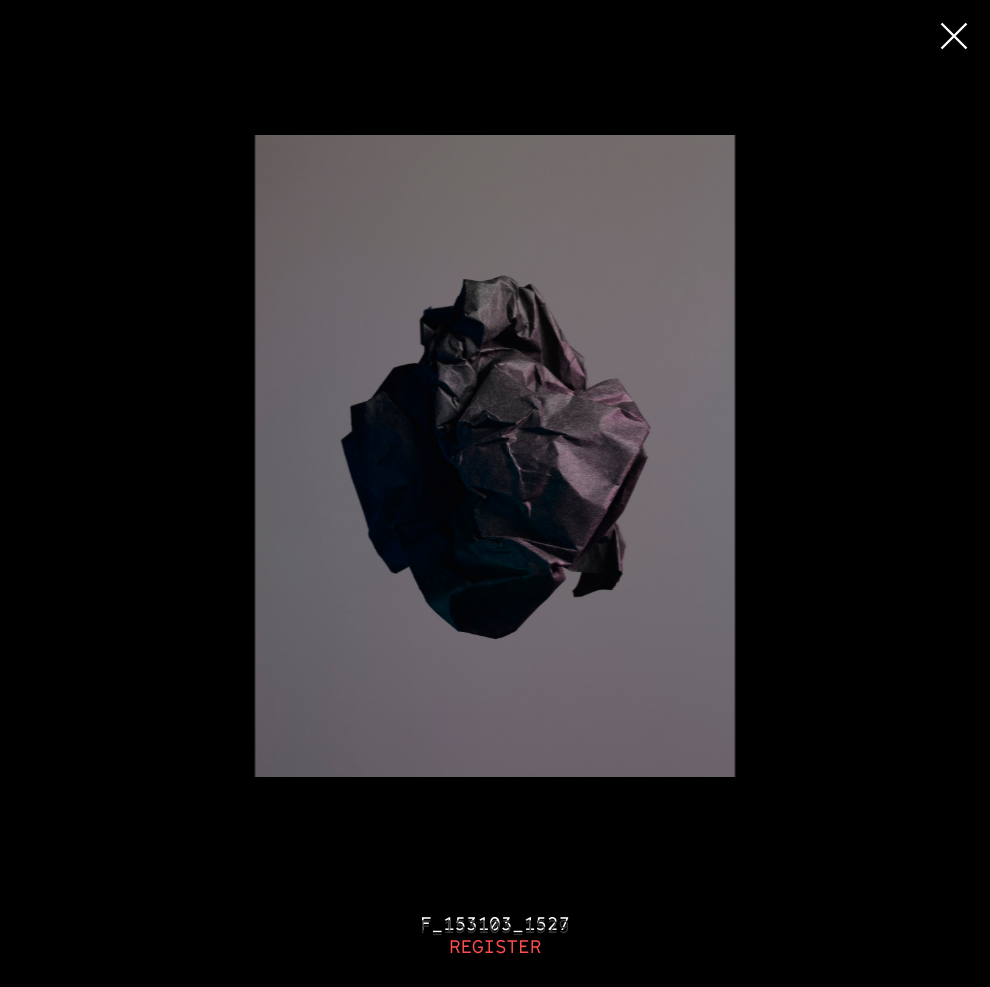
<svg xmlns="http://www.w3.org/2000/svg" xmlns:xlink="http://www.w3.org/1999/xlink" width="990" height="987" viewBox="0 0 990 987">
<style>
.cls-1{font:900 18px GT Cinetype;fill:#ffffff}
.cls-2{font:900 18px GT Cinetype;fill:#ff4c4c}
.cls-3{font:900 18px GT Cinetype;fill:#333333}
</style>
<rect width="100%" height="100%" fill="#000000"/>
<path fill="none" stroke="#ffffff" stroke-width="2.4" d="M941.5 23.5L966.5 48.5M966.5 23.5L941.5 48.5"/>
<image xlink:href="image0.png" x="254" y="135" width="482" height="642"/>
<text class="cls-1" x="420" y="930">F_153103_1527</text>
<text class="cls-2" x="449" y="953">REGISTER</text>
<text class="cls-3" x="420" y="933">F_153103_1529</text>
</svg>
